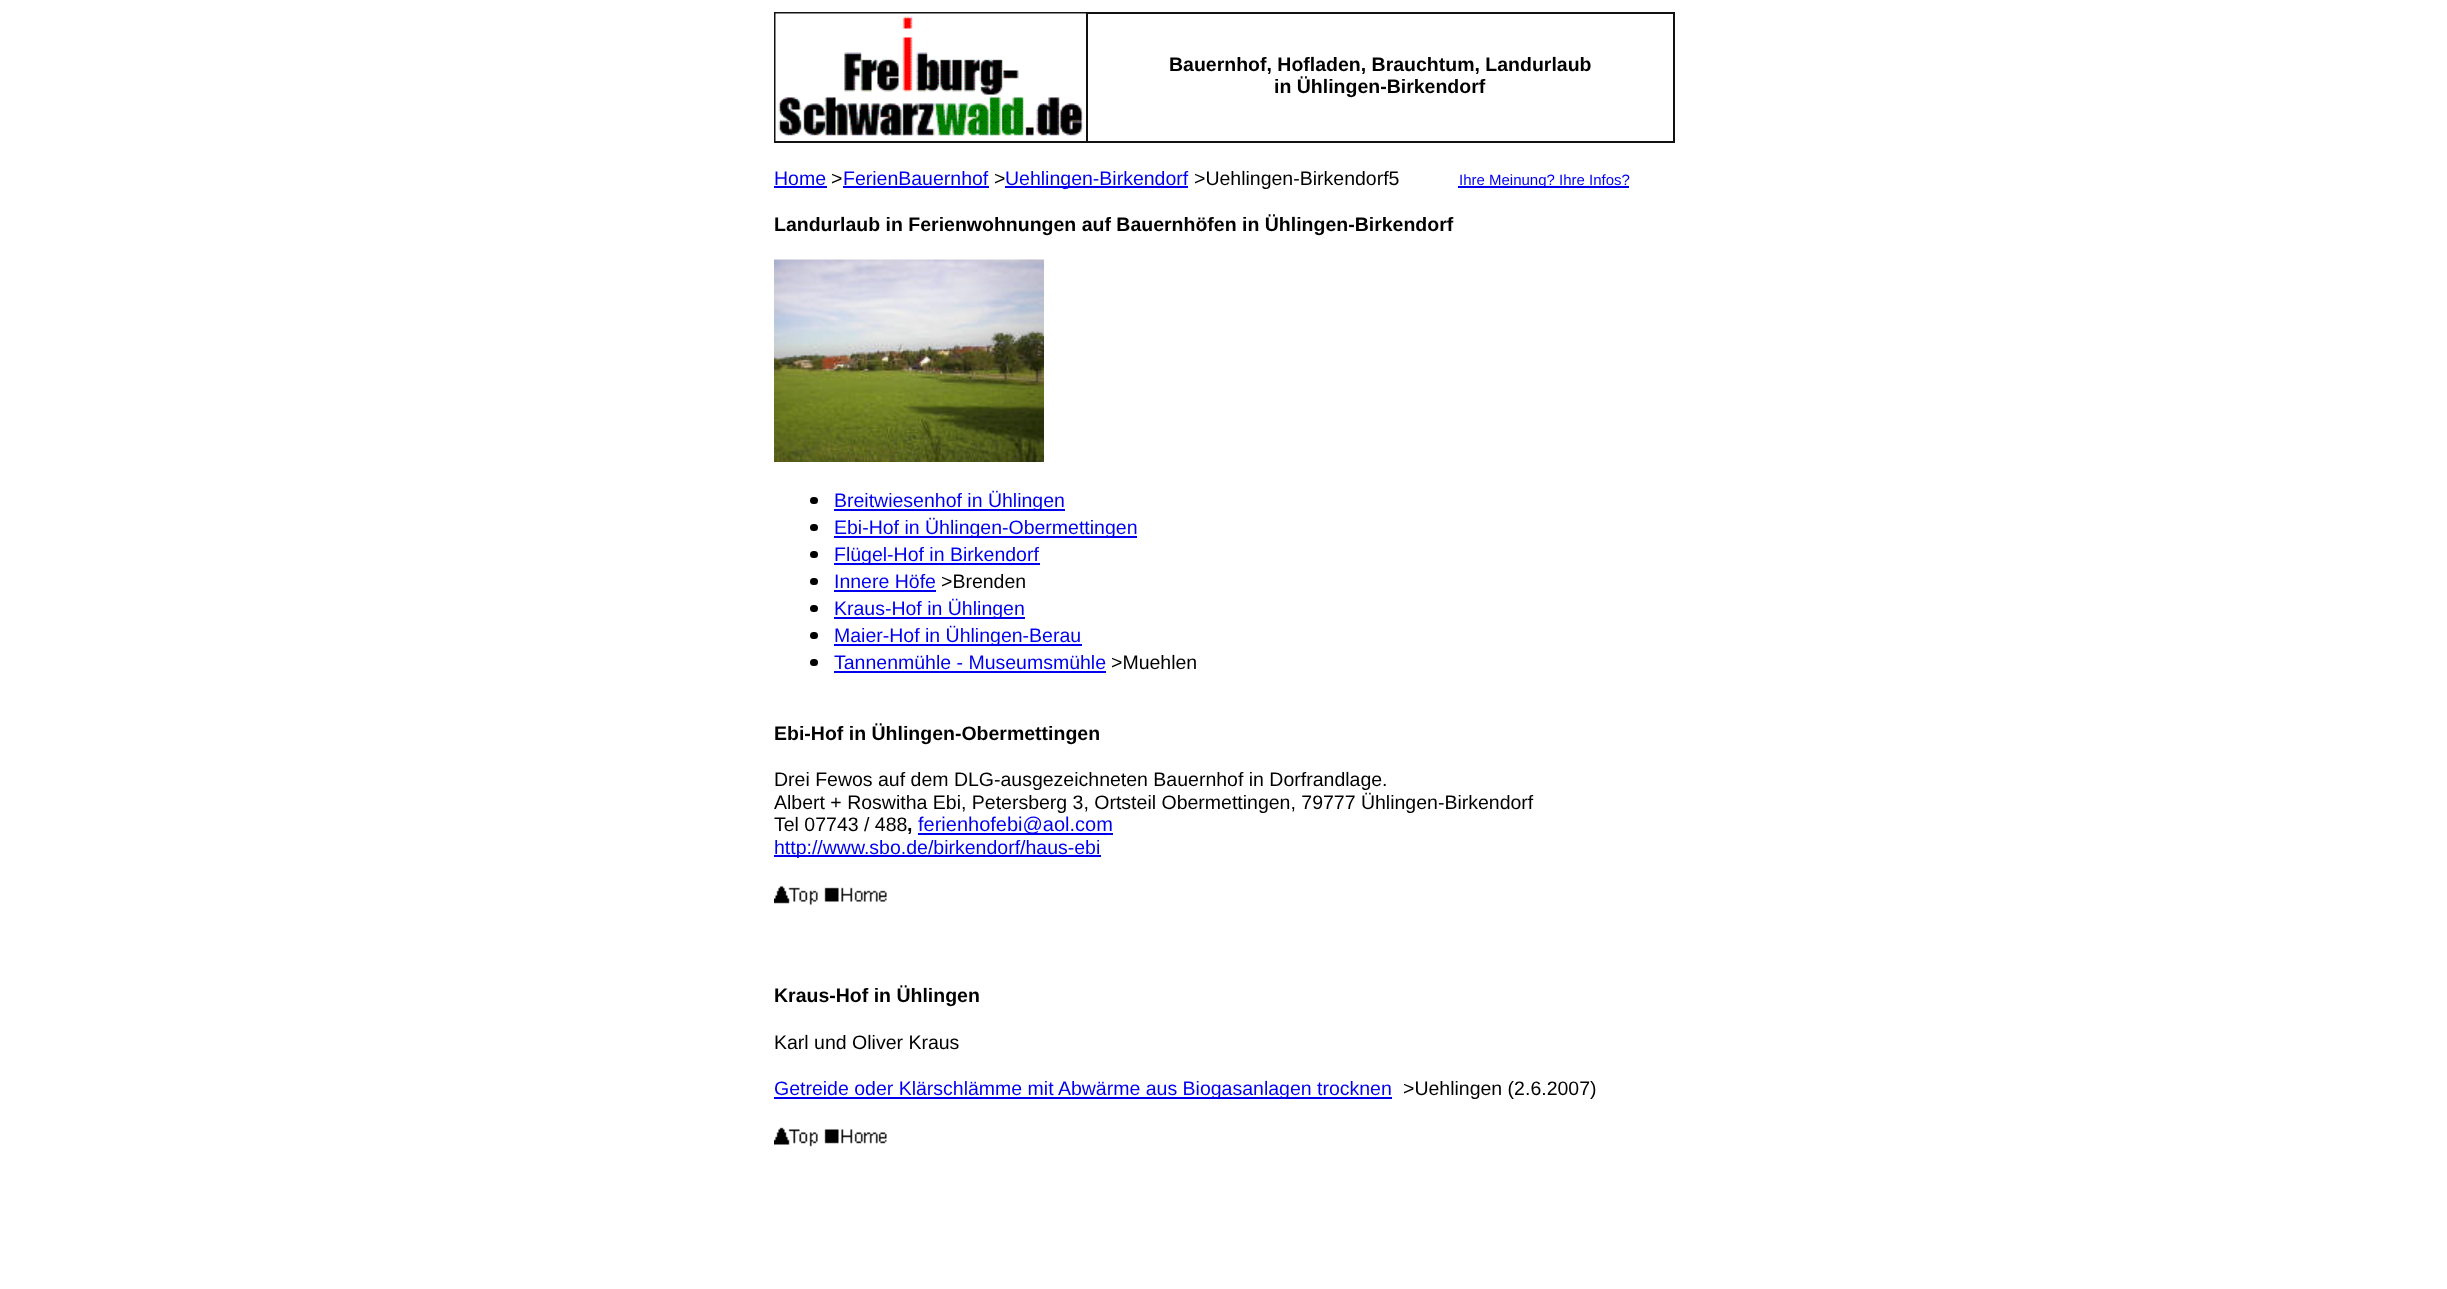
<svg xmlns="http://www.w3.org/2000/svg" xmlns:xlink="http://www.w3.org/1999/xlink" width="2447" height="1289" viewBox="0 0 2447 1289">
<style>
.cls-1{font:bold 19.5px Liberation Sans;fill:#000000}
.cls-2{font:19.5px Liberation Sans;fill:#0000ee}
.cls-3{font:19.5px Liberation Sans;fill:#000000}
.cls-4{font:15px Liberation Sans;fill:#0000ee}
.cls-5{font:20px Liberation Sans;fill:#0000ee}
</style>
<rect width="100%" height="100%" fill="#ffffff"/>
<rect fill="#111111" x="774" y="12" width="900" height="2"/>
<rect fill="#111111" x="1673" y="12" width="2" height="131"/>
<rect fill="#111111" x="774" y="141" width="900" height="2"/>
<rect fill="#111111" x="774" y="12" width="2" height="131"/>
<image xlink:href="image0.png" x="775" y="13" width="311" height="128"/>
<rect fill="#111111" x="1086" y="12" width="2" height="131"/>
<rect fill="#0000ee" x="774" y="186" width="53" height="2"/>
<rect fill="#0000ee" x="843" y="186" width="146" height="2"/>
<rect fill="#0000ee" x="1005" y="186" width="183" height="2"/>
<rect fill="#0000ee" x="1458" y="186" width="171" height="2"/>
<image xlink:href="image1.png" x="774" y="259" width="270" height="203"/>
<rect fill="#000000" x="810" y="497" width="8" height="7" rx="3.5"/>
<rect fill="#0000ee" x="834" y="509" width="231" height="2"/>
<rect fill="#000000" x="810" y="524" width="8" height="7" rx="3.5"/>
<rect fill="#0000ee" x="834" y="536" width="303" height="2"/>
<rect fill="#000000" x="810" y="551" width="8" height="7" rx="3.5"/>
<rect fill="#0000ee" x="834" y="563" width="206" height="2"/>
<rect fill="#000000" x="810" y="578" width="8" height="7" rx="3.5"/>
<rect fill="#0000ee" x="834" y="590" width="102" height="2"/>
<rect fill="#000000" x="810" y="605" width="8" height="7" rx="3.5"/>
<rect fill="#0000ee" x="834" y="617" width="191" height="2"/>
<rect fill="#000000" x="810" y="632" width="8" height="7" rx="3.5"/>
<rect fill="#0000ee" x="834" y="644" width="248" height="2"/>
<rect fill="#000000" x="810" y="659" width="8" height="7" rx="3.5"/>
<rect fill="#0000ee" x="834" y="671" width="272" height="2"/>
<rect fill="#0000ee" x="918" y="833" width="195" height="2"/>
<rect fill="#0000ee" x="774" y="855" width="327" height="2"/>
<image xlink:href="image2.png" x="774" y="886" width="44" height="19"/>
<image xlink:href="image3.png" x="824" y="887" width="63" height="15"/>
<rect fill="#0000ee" x="774" y="1097" width="618" height="2"/>
<image xlink:href="image4.png" x="774" y="1127" width="44" height="20"/>
<image xlink:href="image5.png" x="824" y="1129" width="63" height="15"/>
<text class="cls-1" x="1169" y="71">Bauernhof, Hofladen, Brauchtum, Landurlaub</text>
<text class="cls-1" x="1274" y="93">in Ühlingen-Birkendorf</text>
<text class="cls-2" x="774" y="185">Home</text>
<text class="cls-3" x="831" y="185">&gt;</text>
<text class="cls-2" x="843" y="185">FerienBauernhof</text>
<text class="cls-3" x="994" y="185">&gt;</text>
<text class="cls-2" x="1005" y="185">Uehlingen-Birkendorf</text>
<text class="cls-3" x="1194" y="185">&gt;Uehlingen-Birkendorf5</text>
<text class="cls-4" x="1459" y="185">Ihre Meinung? Ihre Infos?</text>
<text class="cls-1" x="774" y="231">Landurlaub in Ferienwohnungen auf Bauernhöfen in Ühlingen-Birkendorf</text>
<text class="cls-2"><tspan x="834" y="507">Breitwiesenhof in Ühlingen</tspan><tspan x="834" y="534">Ebi-Hof in Ühlingen-Obermettingen</tspan><tspan x="834" y="561">Flügel-Hof in Birkendorf</tspan><tspan x="834" y="588">Innere Höfe</tspan></text>
<text class="cls-3" x="941" y="588">&gt;Brenden</text>
<text class="cls-2"><tspan x="834" y="615">Kraus-Hof in Ühlingen</tspan><tspan x="834" y="642">Maier-Hof in Ühlingen-Berau</tspan><tspan x="834" y="669">Tannenmühle - Museumsmühle</tspan></text>
<text class="cls-3" x="1111" y="669">&gt;Muehlen</text>
<text class="cls-1" x="774" y="740">Ebi-Hof in Ühlingen-Obermettingen</text>
<text class="cls-3"><tspan x="774" y="786">Drei Fewos auf dem DLG-ausgezeichneten Bauernhof in Dorfrandlage.</tspan><tspan x="774" y="809">Albert + Roswitha Ebi, Petersberg 3, Ortsteil Obermettingen, 79777 Ühlingen-Birkendorf</tspan><tspan x="774" y="831">Tel 07743 / 488</tspan></text>
<text class="cls-1" x="907" y="831">,</text>
<text class="cls-5" x="918" y="831">ferienhofebi@aol.com</text>
<text class="cls-2" x="774" y="854">http://www.sbo.de/birkendorf/haus-ebi</text>
<text class="cls-1" x="774" y="1002">Kraus-Hof in Ühlingen</text>
<text class="cls-3" x="774" y="1049">Karl und Oliver Kraus</text>
<text class="cls-2" x="774" y="1095">Getreide oder Klärschlämme mit Abwärme aus Biogasanlagen trocknen</text>
<text class="cls-3" x="1403" y="1095">&gt;Uehlingen (2.6.2007)</text>
</svg>
